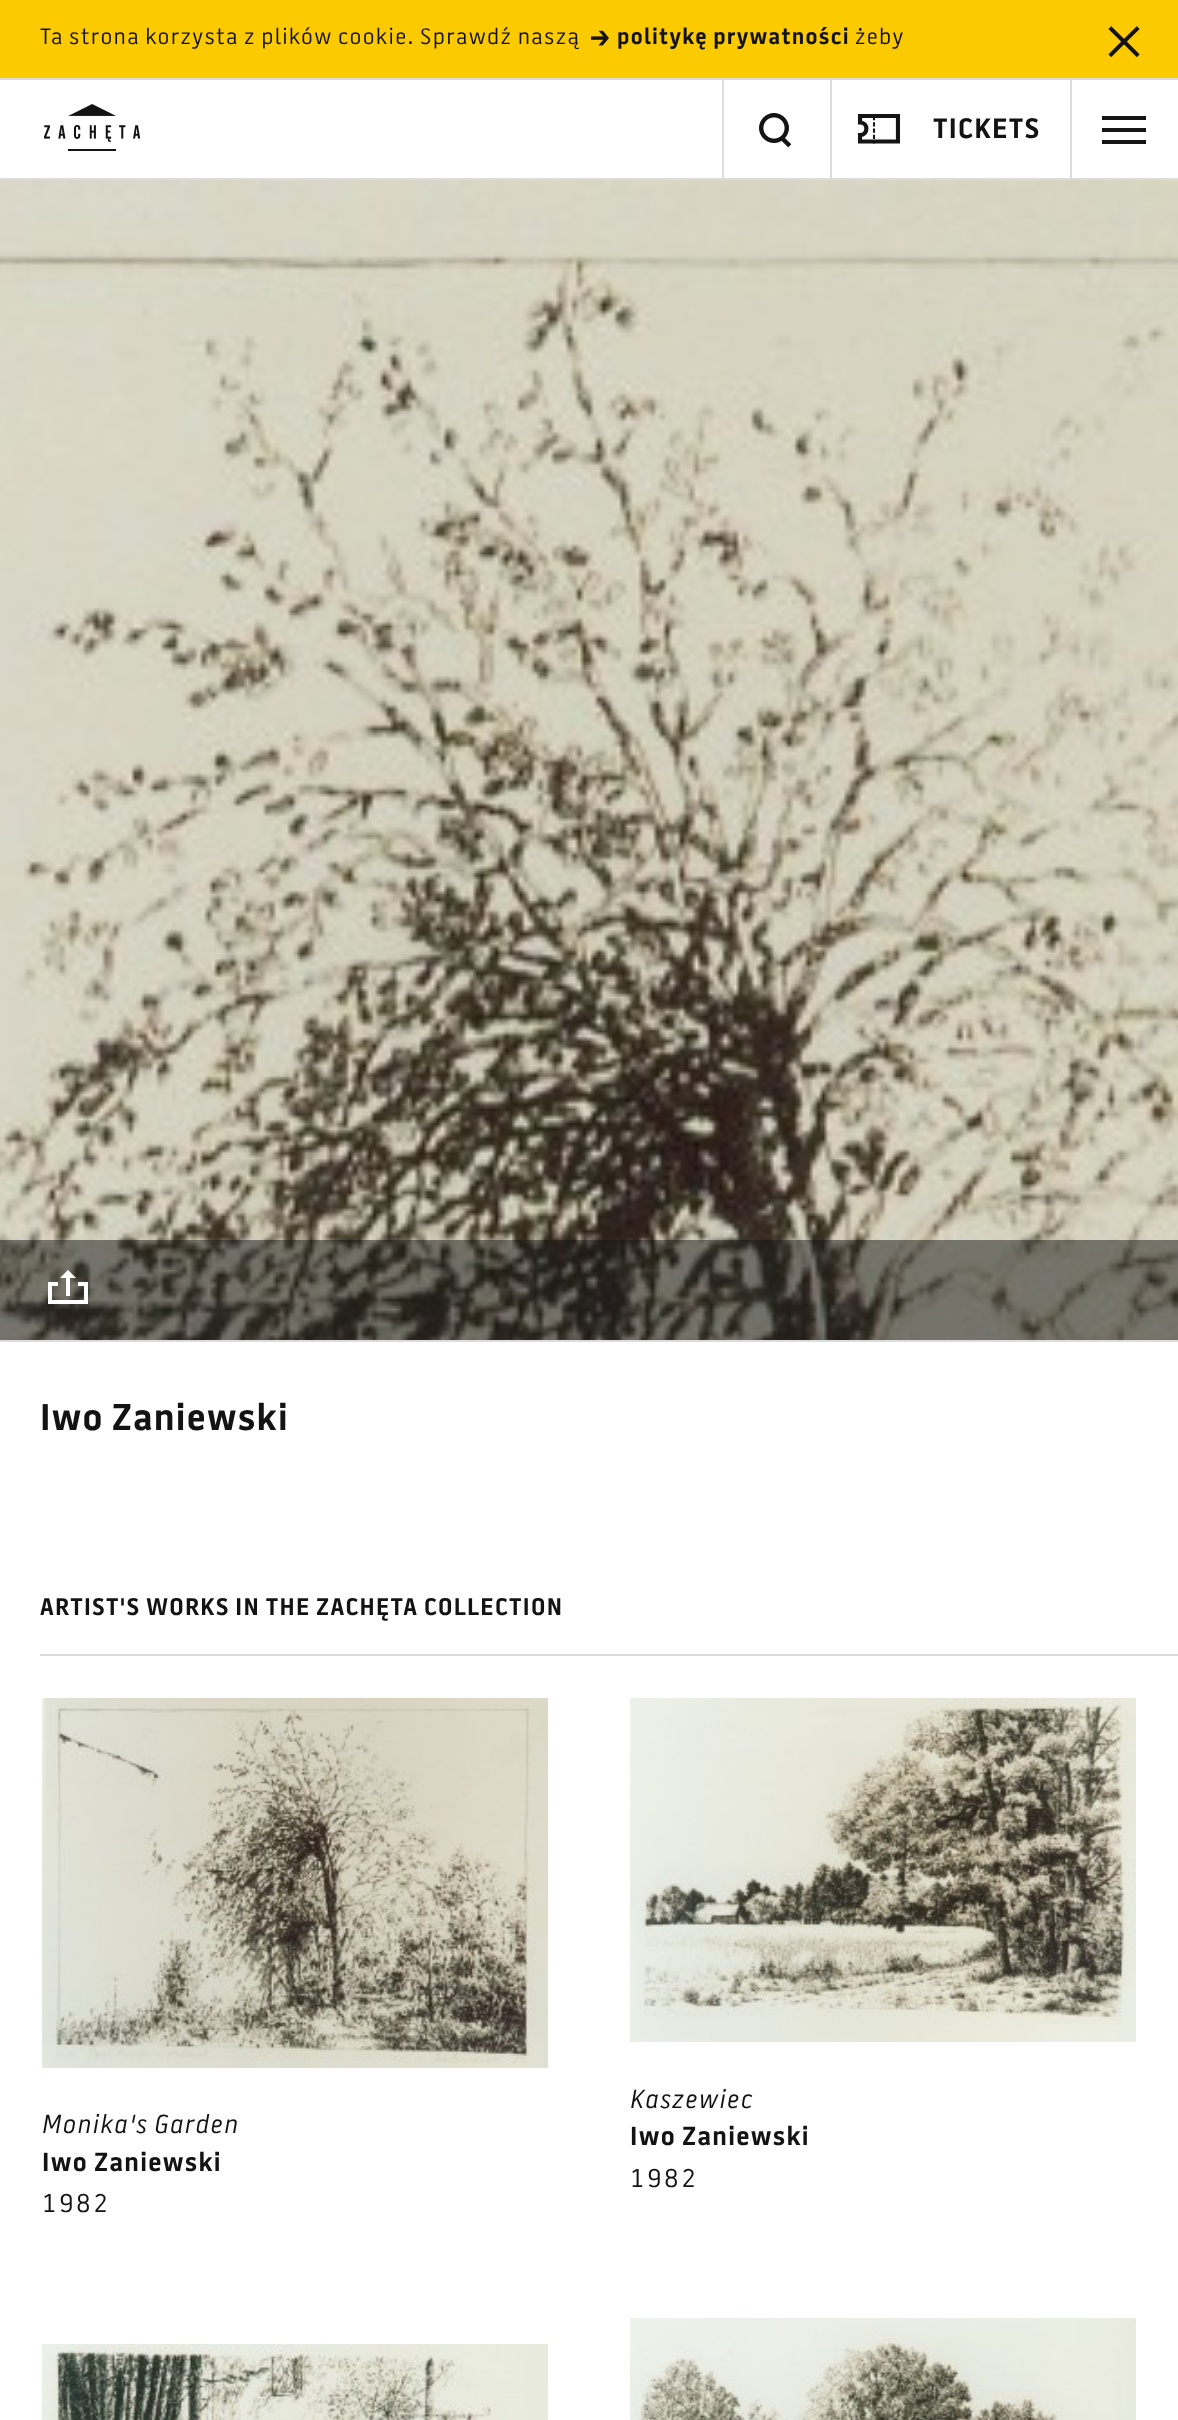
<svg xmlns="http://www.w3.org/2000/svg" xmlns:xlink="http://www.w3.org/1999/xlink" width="1178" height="2420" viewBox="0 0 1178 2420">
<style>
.cls-1{font:22.25px 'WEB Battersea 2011';letter-spacing:1.3px;fill:#131313}
.cls-2{font:bold 22.25px 'WEB Battersea 2011';letter-spacing:1.3px;fill:#131313}
.cls-3{font:bold 28px 'WEB Battersea 2011';letter-spacing:1.25px;fill:#131313}
.cls-4{font:bold 37px 'WEB Battersea 2011';letter-spacing:1.3px;fill:#131313}
.cls-5{font:bold 24px 'WEB Battersea 2011';letter-spacing:1.3px;fill:#131313}
.cls-6{font:italic 26px 'WEB Battersea 2011';letter-spacing:1.3px;fill:#131313}
.cls-7{font:bold 26px 'WEB Battersea 2011';letter-spacing:1.3px;fill:#131313}
.cls-8{font:26px 'WEB Battersea 2011';letter-spacing:2.5px;fill:#131313}
</style>
<defs>
<clipPath id="clip1"><rect x="858" y="114" width="42" height="30"/></clipPath>
</defs>
<rect width="100%" height="100%" fill="#ffffff"/>
<rect fill="#fcca00" x="0" y="0" width="1178" height="78"/>
<rect fill="#dcdcdc" x="0" y="78" width="1178" height="2"/>
<image xlink:href="image0.png" x="591" y="30" width="18" height="16"/>
<image xlink:href="image1.png" x="1108" y="26" width="32" height="32"/>
<image xlink:href="image2.png" x="44" y="104" width="97" height="47"/>
<rect fill="#dcdcdc" x="722" y="80" width="2" height="100"/>
<image xlink:href="image3.png" x="759" y="113" width="33" height="35"/>
<rect fill="#dcdcdc" x="830" y="80" width="2" height="100"/>
<g clip-path="url(#clip1)">
<path fill="none" stroke="#141414" stroke-width="4.2" d="M898 116V141.5H860V135C868.5 135 868.5 122.5 860 122.5V116Z"/>
</g>
<path fill="none" stroke="#141414" stroke-width="2.1" stroke-linecap="square" stroke-dasharray="2.1 4.2" d="M874 117V142.5"/>
<rect fill="#dcdcdc" x="1070" y="80" width="2" height="100"/>
<rect fill="#141414" x="1102" y="116" width="44" height="4"/>
<rect fill="#141414" x="1102" y="128" width="44" height="4"/>
<rect fill="#141414" x="1102" y="140" width="44" height="4"/>
<rect fill="#dcdcdc" x="0" y="178" width="1178" height="2"/>
<image xlink:href="image4.png" x="0" y="180" width="1178" height="1160"/>
<rect fill="#131313" fill-opacity="0.5" x="0" y="1240" width="1178" height="100"/>
<image xlink:href="image5.png" x="48" y="1270" width="40" height="34"/>
<rect fill="#dcdcdc" x="0" y="1340" width="1178" height="2"/>
<rect fill="#dcdcdc" x="40" y="1654" width="1138" height="2"/>
<image xlink:href="image6.png" x="42" y="1698" width="506" height="370"/>
<image xlink:href="image7.png" x="630" y="1698" width="506" height="344"/>
<image xlink:href="image8.png" x="42" y="2344" width="506" height="76"/>
<image xlink:href="image9.png" x="630" y="2318" width="506" height="102"/>
<text class="cls-1" x="40" y="44">Ta strona korzysta z plików cookie. Sprawdź naszą</text>
<text class="cls-2" x="617" y="44">politykę prywatności</text>
<text class="cls-1" x="855" y="44">żeby</text>
<text class="cls-3" x="933" y="138">TICKETS</text>
<text class="cls-4" x="40" y="1430">Iwo Zaniewski</text>
<text class="cls-5" x="40" y="1615">ARTIST'S WORKS IN THE ZACHĘTA COLLECTION</text>
<text class="cls-6" x="42" y="2133">Monika's Garden</text>
<text class="cls-7" x="42" y="2171">Iwo Zaniewski</text>
<text class="cls-8" x="42" y="2212">1982</text>
<text class="cls-6" x="630" y="2108">Kaszewiec</text>
<text class="cls-7" x="630" y="2145">Iwo Zaniewski</text>
<text class="cls-8" x="630" y="2187">1982</text>
</svg>
